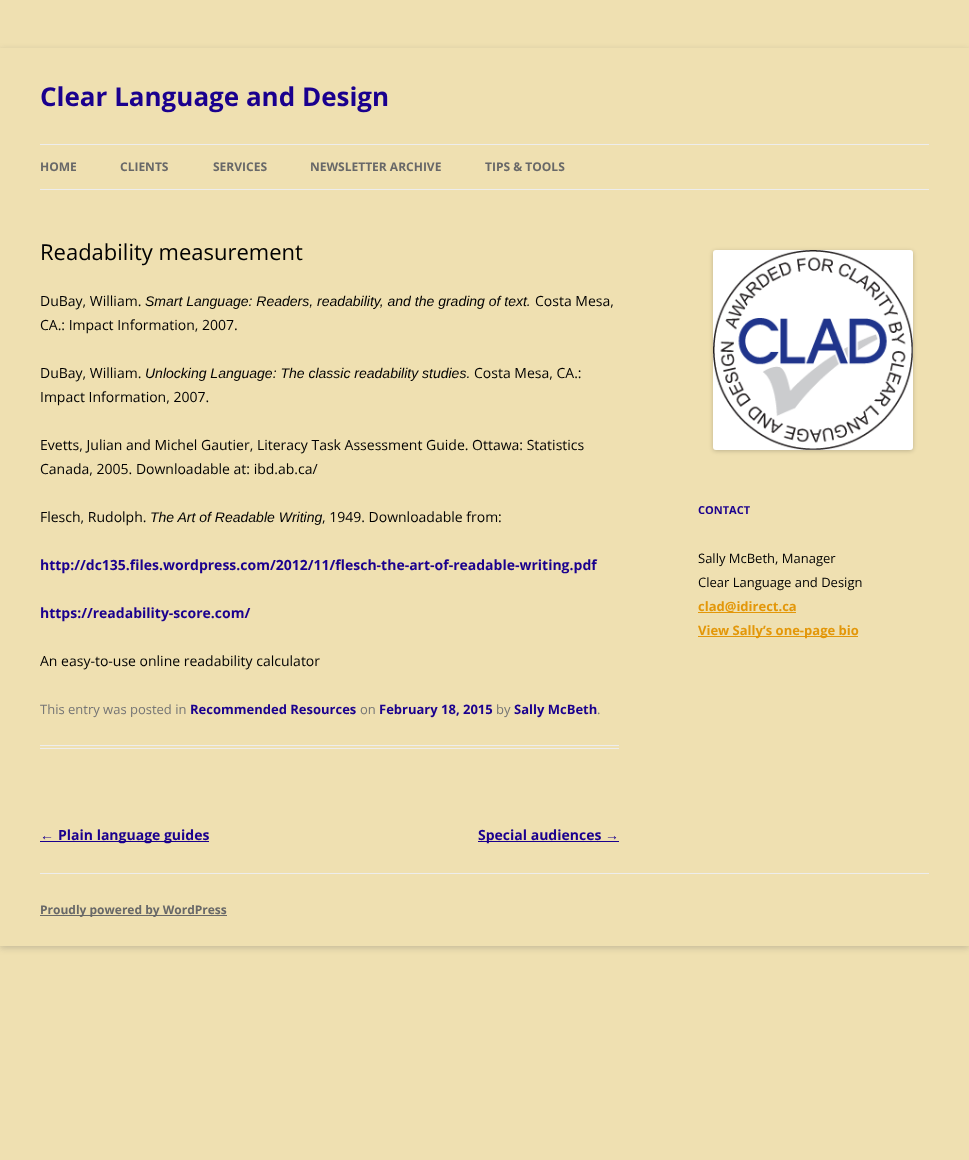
<svg xmlns="http://www.w3.org/2000/svg" xmlns:xlink="http://www.w3.org/1999/xlink" width="969" height="1160" viewBox="0 0 969 1160">
<style>
.cls-1{font:bold 26px Open Sans;fill:#1a008e}
.cls-2{font:bold 12px Open Sans;fill:#686868}
.cls-3{font:22px Open Sans;fill:#000000}
.cls-4{font:14px Open Sans;fill:#000000}
.cls-5{font:italic 14px Liberation Sans;fill:#000000}
.cls-6{font:bold 14px Open Sans;fill:#1a008e}
.cls-7{font:13px Open Sans;fill:#757575}
.cls-8{font:bold 13px Open Sans;fill:#1a008e}
.cls-9{font:bold 14px Liberation Sans;fill:#1a008e}
.cls-10{font:bold 11px Open Sans;fill:#1a008e}
.cls-11{font:13px Open Sans;fill:#000000}
.cls-12{font:bold 13px Open Sans;fill:#e39709}
</style>
<defs>
<clipPath id="clip1"><path d="M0 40H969V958H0ZM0 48H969V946H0Z" clip-rule="evenodd"/></clipPath>
</defs>
<rect width="100%" height="100%" fill="#efe0b1"/>
<g clip-path="url(#clip1)">
<rect fill="#646464" fill-opacity="0.3" filter="blur(3px)" x="0" y="50" width="969" height="898"/>
</g>
<rect fill="#ededed" x="40" y="144" width="889" height="1"/>
<rect fill="#ededed" x="40" y="189" width="889" height="1"/>
<rect fill="#ededed" x="40" y="745" width="579" height="1"/>
<rect fill="#ededed" x="40" y="748" width="579" height="1"/>
<rect fill="#1a008e" x="40" y="841" width="169" height="1"/>
<rect fill="#1a008e" x="478" y="841" width="141" height="1"/>
<rect fill="#000000" fill-opacity="0.2" filter="blur(2px)" x="713" y="251" width="200" height="200" rx="3"/>
<image xlink:href="image0.png" x="713" y="250" width="200" height="200"/>
<rect fill="#e39709" x="698" y="612" width="98" height="1"/>
<rect fill="#e39709" x="698" y="636" width="160" height="1"/>
<rect fill="#ededed" x="40" y="873" width="889" height="1"/>
<rect fill="#686868" x="40" y="915" width="187" height="1"/>
<text class="cls-1" x="40" y="106">Clear Language and Design</text>
<text class="cls-2" x="40" y="171">HOME</text>
<text class="cls-2" x="120" y="171">CLIENTS</text>
<text class="cls-2" x="213" y="171">SERVICES</text>
<text class="cls-2" x="310" y="171">NEWSLETTER ARCHIVE</text>
<text class="cls-2" x="485" y="171">TIPS &amp; TOOLS</text>
<text class="cls-3" x="40" y="260">Readability measurement</text>
<text class="cls-4" x="40" y="306">DuBay, William.</text>
<text class="cls-5" x="145" y="306">Smart Language: Readers, readability, and the grading of text.</text>
<text class="cls-4" x="535" y="306">Costa Mesa,</text>
<text class="cls-4" x="40" y="330">CA.: Impact Information, 2007.</text>
<text class="cls-4" x="40" y="378">DuBay, William.</text>
<text class="cls-5" x="145" y="378">Unlocking Language: The classic readability studies.</text>
<text class="cls-4" x="474" y="378">Costa Mesa, CA.:</text>
<text class="cls-4" x="40" y="402">Impact Information, 2007.</text>
<text class="cls-4"><tspan x="40" y="450">Evetts, Julian and Michel Gautier, Literacy Task Assessment Guide. Ottawa: Statistics</tspan><tspan x="40" y="474">Canada, 2005. Downloadable at: ibd.ab.ca/</tspan></text>
<text class="cls-4" x="40" y="522">Flesch, Rudolph.</text>
<text class="cls-5" x="150" y="522">The Art of Readable Writing</text>
<text class="cls-4" x="322" y="522">, 1949. Downloadable from:</text>
<text class="cls-6" x="40" y="570">http://dc135.files.wordpress.com/2012/11/flesch-the-art-of-readable-writing.pdf</text>
<text class="cls-6" x="40" y="618">https://readability-score.com/</text>
<text class="cls-4" x="40" y="666">An easy-to-use online readability calculator</text>
<text class="cls-7" x="40" y="714">This entry was posted in</text>
<text class="cls-8" x="190" y="714">Recommended Resources</text>
<text class="cls-7" x="360" y="714">on</text>
<text class="cls-8" x="379" y="714">February 18, 2015</text>
<text class="cls-7" x="496" y="714">by</text>
<text class="cls-8" x="514" y="714">Sally McBeth</text>
<text class="cls-7" x="597" y="714">.</text>
<text class="cls-9" x="40" y="840">←</text>
<text class="cls-6" x="58" y="840">Plain language guides</text>
<text class="cls-6" x="478" y="840">Special audiences</text>
<text class="cls-9" x="605" y="840">→</text>
<text class="cls-10" x="698" y="514">CONTACT</text>
<text class="cls-11"><tspan x="698" y="563">Sally McBeth, Manager</tspan><tspan x="698" y="587">Clear Language and Design</tspan></text>
<text class="cls-12"><tspan x="698" y="611">clad@idirect.ca</tspan><tspan x="698" y="635">View Sally’s one-page bio</tspan></text>
<text class="cls-2" x="40" y="914">Proudly powered by WordPress</text>
</svg>
